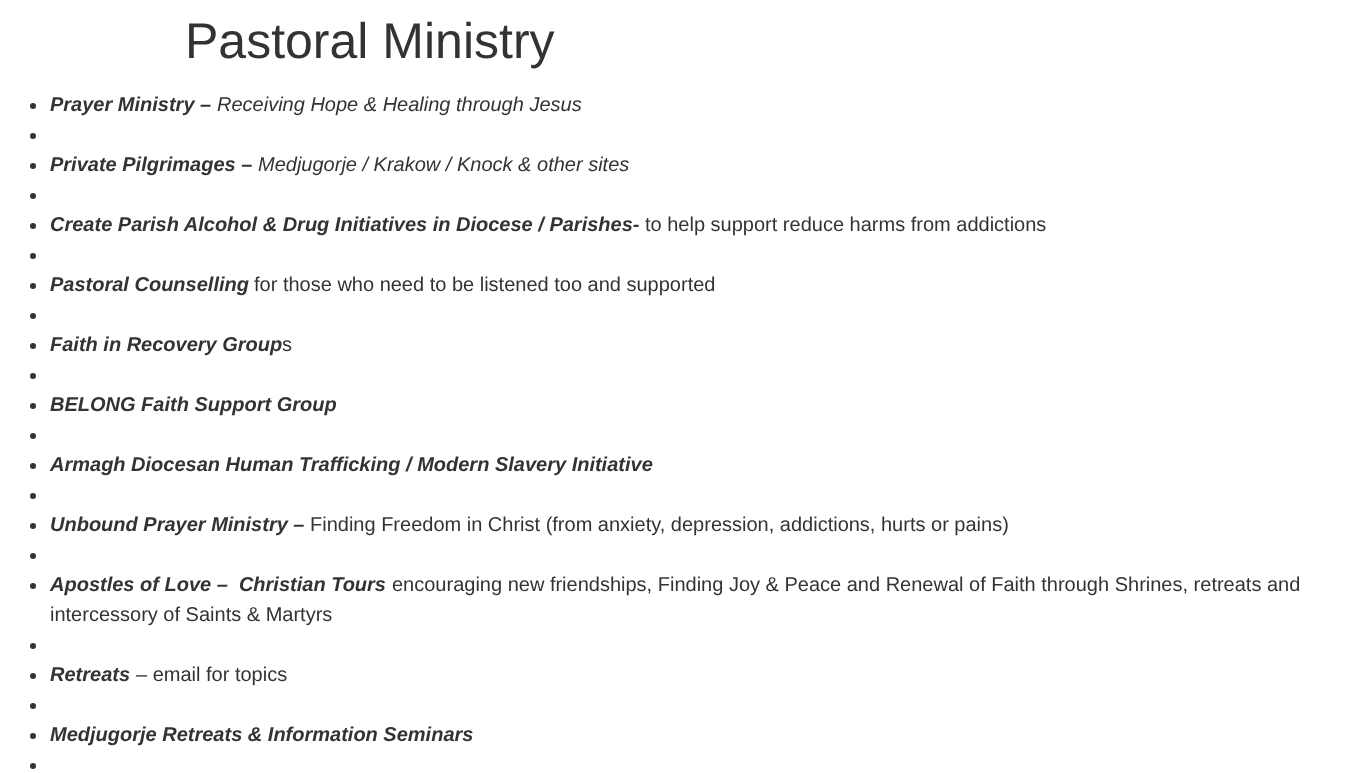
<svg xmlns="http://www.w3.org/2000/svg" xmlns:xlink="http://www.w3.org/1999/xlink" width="1369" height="773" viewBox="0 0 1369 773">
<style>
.cls-1{font:50px Liberation Sans;fill:#333333}
.cls-2{font:italic bold 20px Liberation Sans;fill:#333333}
.cls-3{font:italic 20px Liberation Sans;fill:#333333}
.cls-4{font:20px Liberation Sans;fill:#333333}
</style>
<rect width="100%" height="100%" fill="#ffffff"/>
<circle fill="#333333" cx="33" cy="106" r="3"/>
<circle fill="#333333" cx="33" cy="136" r="3"/>
<circle fill="#333333" cx="33" cy="166" r="3"/>
<circle fill="#333333" cx="33" cy="196" r="3"/>
<circle fill="#333333" cx="33" cy="226" r="3"/>
<circle fill="#333333" cx="33" cy="256" r="3"/>
<circle fill="#333333" cx="33" cy="286" r="3"/>
<circle fill="#333333" cx="33" cy="316" r="3"/>
<circle fill="#333333" cx="33" cy="346" r="3"/>
<circle fill="#333333" cx="33" cy="376" r="3"/>
<circle fill="#333333" cx="33" cy="406" r="3"/>
<circle fill="#333333" cx="33" cy="436" r="3"/>
<circle fill="#333333" cx="33" cy="466" r="3"/>
<circle fill="#333333" cx="33" cy="496" r="3"/>
<circle fill="#333333" cx="33" cy="526" r="3"/>
<circle fill="#333333" cx="33" cy="556" r="3"/>
<circle fill="#333333" cx="33" cy="586" r="3"/>
<circle fill="#333333" cx="33" cy="646" r="3"/>
<circle fill="#333333" cx="33" cy="676" r="3"/>
<circle fill="#333333" cx="33" cy="706" r="3"/>
<circle fill="#333333" cx="33" cy="736" r="3"/>
<circle fill="#333333" cx="33" cy="766" r="3"/>
<text class="cls-1" x="185" y="58">Pastoral Ministry</text>
<text class="cls-2" x="50" y="111">Prayer Ministry –</text>
<text class="cls-3" x="217" y="111">Receiving Hope &amp; Healing through Jesus</text>
<text class="cls-2" x="50" y="171">Private Pilgrimages –</text>
<text class="cls-3" x="258" y="171">Medjugorje / Krakow / Knock &amp; other sites</text>
<text class="cls-2" x="50" y="231">Create Parish Alcohol &amp; Drug Initiatives in Diocese / Parishes-</text>
<text class="cls-4" x="645" y="231">to help support reduce harms from addictions</text>
<text class="cls-2" x="50" y="291">Pastoral Counselling</text>
<text class="cls-4" x="254" y="291">for those who need to be listened too and supported</text>
<text class="cls-2" x="50" y="351">Faith in Recovery Group</text>
<text class="cls-4" x="282" y="351">s</text>
<text class="cls-2" x="50" y="411">BELONG Faith Support Group</text>
<text class="cls-2" x="50" y="471">Armagh Diocesan Human Trafficking / Modern Slavery Initiative</text>
<text class="cls-2" x="50" y="531">Unbound Prayer Ministry –</text>
<text class="cls-4" x="310" y="531">Finding Freedom in Christ (from anxiety, depression, addictions, hurts or pains)</text>
<text class="cls-2" xml:space="preserve" x="50" y="591">Apostles of Love –  Christian Tours</text>
<text class="cls-4" x="392" y="591">encouraging new friendships, Finding Joy &amp; Peace and Renewal of Faith through Shrines, retreats and</text>
<text class="cls-4" x="50" y="621">intercessory of Saints &amp; Martyrs</text>
<text class="cls-2" x="50" y="681">Retreats</text>
<text class="cls-4" x="136" y="681">– email for topics</text>
<text class="cls-2" x="50" y="741">Medjugorje Retreats &amp; Information Seminars</text>
</svg>
